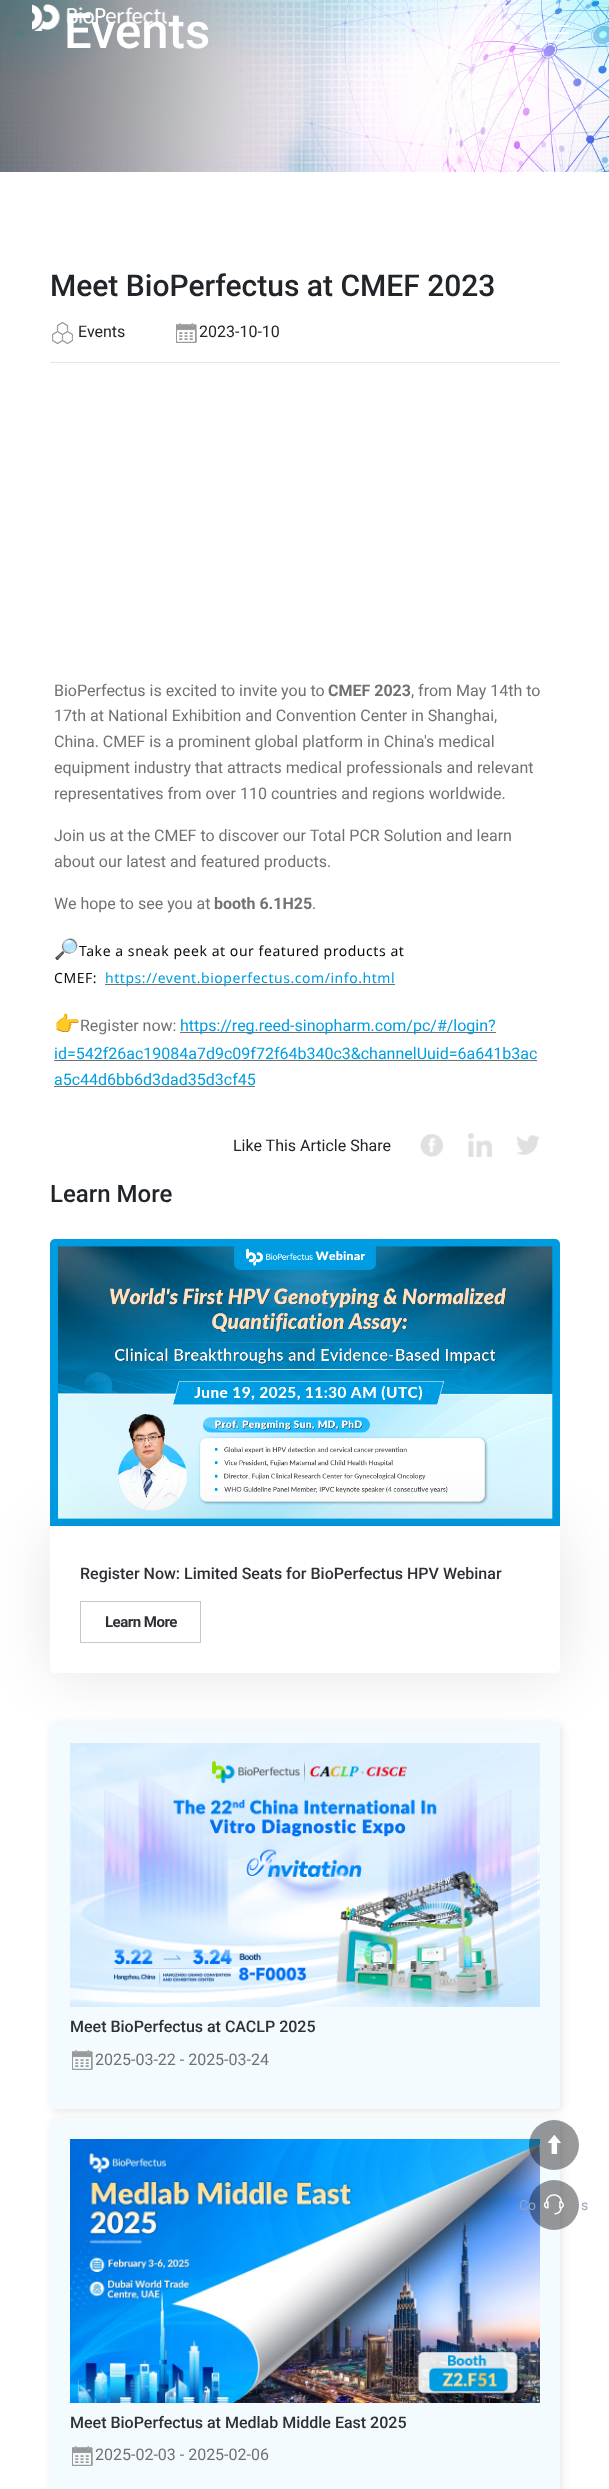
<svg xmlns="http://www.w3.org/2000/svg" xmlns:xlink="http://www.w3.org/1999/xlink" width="609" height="2489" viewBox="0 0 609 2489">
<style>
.cls-1{font:500 49px Roboto;fill:#ffffff}
.cls-2{font:500 30px Roboto;fill:#212529}
.cls-3{font:16px Roboto;fill:#212529}
.cls-4{font:16px Roboto;fill:#727171}
.cls-5{font:bold 16px Roboto;fill:#727171}
.cls-6{font:20px Noto Color Emoji;letter-spacing:0.55px;fill:#1a1a1a}
.cls-7{font:14px Noto Sans;letter-spacing:0.55px;fill:#0c0c0c}
.cls-8{font:14px Noto Sans;letter-spacing:0.55px;fill:#009de1}
.cls-9{font:21px Noto Color Emoji;fill:#374151}
.cls-10{font:16px Roboto;fill:#009de1}
.cls-11{font:500 24px Roboto;fill:#212529}
.cls-12{font:500 16px Roboto;fill:#2f3035}
.cls-13{font:bold 15px Roboto;letter-spacing:-0.5px;fill:#2f3035}
.cls-14{font:14px Roboto;fill:#95a4ba}
</style>
<rect width="100%" height="100%" fill="#ffffff"/>
<image xlink:href="image2.png" x="0" y="0" width="609" height="172"/>
<image xlink:href="image1.png" x="545" y="25" width="24" height="17"/>
<image xlink:href="image3.png" x="52" y="322" width="21" height="22"/>
<image xlink:href="image4.png" x="176" y="323" width="21" height="20"/>
<rect fill="#e6e6e6" x="50" y="362" width="510" height="1"/>
<rect fill="#727171" x="105" y="984" width="290" height="1"/>
<rect fill="#727171" x="180" y="1032" width="316" height="1"/>
<rect fill="#727171" x="54" y="1060" width="483" height="1"/>
<rect fill="#727171" x="54" y="1086" width="201" height="1"/>
<image xlink:href="image5.png" x="420" y="1134" width="23" height="23"/>
<image xlink:href="image6.png" x="468" y="1133" width="24" height="24"/>
<image xlink:href="image7.png" x="516" y="1135" width="24" height="20"/>
<image xlink:href="image8.png" x="50" y="1239" width="510" height="287"/>
<rect fill="#000000" fill-opacity="0.1" filter="blur(4px)" x="52" y="1725" width="510" height="386" rx="5"/>
<rect fill="#f3fbff" x="50" y="1723" width="510" height="386" rx="5"/>
<rect fill="#000000" fill-opacity="0.1" filter="blur(30px)" x="51" y="1528" width="510" height="147" rx="5"/>
<path fill="#ffffff" d="M50 1526H560V1668C560 1671 558 1673 555 1673H55C52 1673 50 1671 50 1668Z"/>
<rect fill="none" stroke="#c6c6c6" x="80.5" y="1601.5" width="120" height="41"/>
<image xlink:href="image9.png" x="70" y="1743" width="470" height="264"/>
<image xlink:href="image10.png" x="72" y="2050" width="21" height="20"/>
<rect fill="#000000" fill-opacity="0.1" filter="blur(4px)" x="52" y="2121" width="510" height="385" rx="5"/>
<rect fill="#f3fbff" x="50" y="2119" width="510" height="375" rx="5"/>
<image xlink:href="image11.png" x="70" y="2139" width="470" height="264"/>
<image xlink:href="image10.png" x="72" y="2446" width="21" height="20"/>
<circle fill="#000000" fill-opacity="0.4" cx="554" cy="2145" r="25"/>
<image xlink:href="image12.png" x="547" y="2135" width="14" height="19"/>
<circle fill="#000000" fill-opacity="0.4" cx="554" cy="2205" r="25"/>
<image xlink:href="image13.png" x="543" y="2194" width="21" height="21"/>
<text class="cls-1" x="64" y="48">Events</text>
<image xlink:href="image0.png" x="32" y="4" width="135" height="27"/>
<text class="cls-2" x="50" y="296">Meet BioPerfectus at CMEF 2023</text>
<text class="cls-3" x="78" y="337">Events</text>
<text class="cls-3" x="199" y="337">2023-10-10</text>
<text class="cls-4" x="54" y="696">BioPerfectus is excited to invite you to</text>
<text class="cls-5" x="328" y="696">CMEF 2023</text>
<text class="cls-4" x="411" y="696">, from May 14th to</text>
<text class="cls-4"><tspan x="54" y="721">17th at National Exhibition and Convention Center in Shanghai,</tspan><tspan x="54" y="747">China. CMEF is a prominent global platform in China's medical</tspan><tspan x="54" y="773">equipment industry that attracts medical professionals and relevant</tspan><tspan x="54" y="799">representatives from over 110 countries and regions worldwide.</tspan></text>
<text class="cls-4"><tspan x="54" y="841">Join us at the CMEF to discover our Total PCR Solution and learn</tspan><tspan x="54" y="867">about our latest and featured products.</tspan></text>
<text class="cls-4" x="54" y="909">We hope to see you at</text>
<text class="cls-5" x="214" y="909">booth 6.1H25</text>
<text class="cls-4" x="312" y="909">.</text>
<text class="cls-6" x="54" y="956">🔎</text>
<text class="cls-7" x="79" y="956">Take a sneak peek at our featured products at</text>
<text class="cls-7" x="54" y="983">CMEF:</text>
<text class="cls-8" x="105" y="983">https://event.bioperfectus.com/info.html</text>
<text class="cls-9" x="54" y="1031">👉</text>
<text class="cls-4" x="80" y="1031">Register now:</text>
<text class="cls-10" x="180" y="1031">https://reg.reed-sinopharm.com/pc/#/login?</text>
<text class="cls-10"><tspan x="54" y="1059">id=542f26ac19084a7d9c09f72f64b340c3&amp;channelUuid=6a641b3ac</tspan><tspan x="54" y="1085">a5c44d6bb6d3dad35d3cf45</tspan></text>
<text class="cls-3" x="233" y="1151">Like This Article Share</text>
<text class="cls-11" x="50" y="1202">Learn More</text>
<text class="cls-12" x="80" y="1579">Register Now: Limited Seats for BioPerfectus HPV Webinar</text>
<text class="cls-13" x="105" y="1627">Learn More</text>
<text class="cls-12" x="70" y="2032">Meet BioPerfectus at CACLP 2025</text>
<text class="cls-4" x="95" y="2065">2025-03-22 - 2025-03-24</text>
<text class="cls-12" x="70" y="2428">Meet BioPerfectus at Medlab Middle East 2025</text>
<text class="cls-4" x="95" y="2460">2025-02-03 - 2025-02-06</text>
<text class="cls-14" x="519" y="2210">Co</text>
<text class="cls-14" x="581" y="2210">s</text>
</svg>
